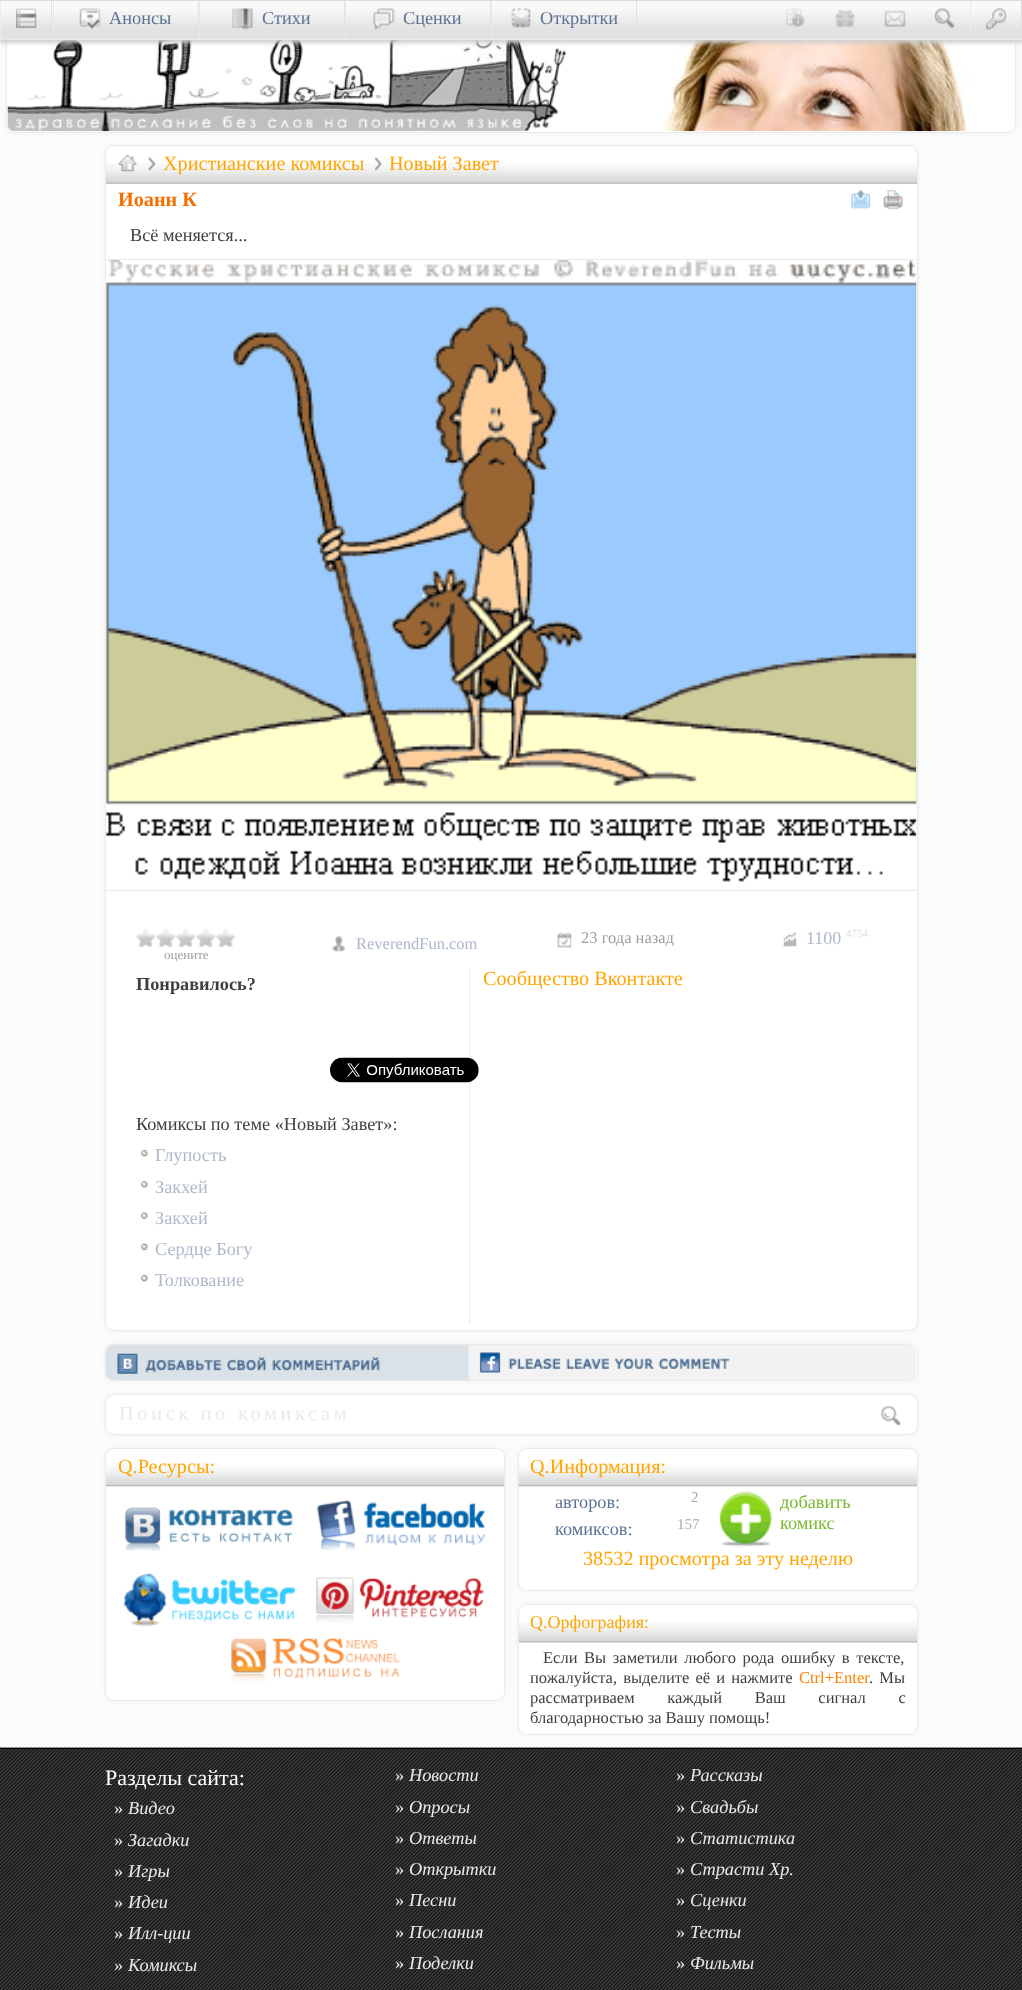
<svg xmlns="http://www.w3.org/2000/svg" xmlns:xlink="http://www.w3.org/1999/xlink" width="1022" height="1990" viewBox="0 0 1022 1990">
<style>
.cls-1{font:18.3px Liberation Serif;fill:#5d7195}
.cls-2{font:20.2px Liberation Serif;fill:#ffa500}
.cls-3{font:bold 20.2px Liberation Serif;fill:#f36f01}
.cls-4{font:18.3px Liberation Serif;fill:#3f3f3f}
.cls-5{font:16.5px Liberation Serif;fill:#aeb8ca}
.cls-6{font:16.5px Liberation Serif;fill:#9f9f9f}
.cls-7{font:18px Liberation Serif;fill:#aeb8ca}
.cls-8{font:11px Liberation Serif;fill:#dfdfdf}
.cls-9{font:13px Liberation Serif;fill:#9f9f9f}
.cls-10{font:bold 18.3px Liberation Serif;fill:#3f3f3f}
.cls-11{font:18.3px Liberation Serif;fill:#aeb8ca}
.cls-12{font:20.2px Liberation Serif;letter-spacing:3.75px;fill:#eaeaea}
.cls-13{font:15px Liberation Serif;fill:#aaaaaa}
.cls-14{font:18.3px Liberation Serif;fill:#77b830}
.cls-15{font:18px Liberation Serif;fill:#ffa500}
.cls-16{font:16.5px Liberation Serif;fill:#3f3f3f}
.cls-17{font:16.5px Liberation Serif;fill:#ff8000}
.cls-18{font:22px Liberation Serif;fill:#ffffff}
.cls-19{font:18.3px Liberation Serif;fill:#eaeaea}
.cls-20{font:italic 18.3px Liberation Serif;fill:#eaeaea}
</style>
<defs>
<linearGradient id="g1" gradientUnits="userSpaceOnUse" x1="511" y1="1.2" x2="511" y2="39"><stop offset="0.19" stop-color="#f9f9f9"/><stop offset="0.75" stop-color="#e2e2e2"/></linearGradient>
<clipPath id="clip1"><path d="M-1 0H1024V36C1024 38 1022 40 1020 40H3C1 40-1 38-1 36Z"/></clipPath>
<linearGradient id="g2" gradientUnits="userSpaceOnUse" x1="511" y1="39" x2="511" y2="76"><stop offset="0.19" stop-color="#f9f9f9"/><stop offset="0.75" stop-color="#e2e2e2"/></linearGradient>
</defs>
<rect width="100%" height="100%" fill="#fbfbfb"/>
<rect fill="#e5e5e5" fill-opacity="0.5" filter="blur(2px)" x="6" y="-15" width="1010" height="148" rx="9"/>
<rect fill="#ffffff" stroke="#eaeaea" x="6.5" y="-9.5" width="1009" height="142" rx="8.5"/>
<image xlink:href="image10.png" x="7" y="40" width="560" height="92"/>
<image xlink:href="image11.png" x="663" y="40" width="346" height="92"/>
<rect fill="#cecece" filter="blur(2px)" x="-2" y="0" width="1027" height="43" rx="5"/>
<rect fill="url(#g1)" x="0" y="1" width="1022" height="38"/>
<g clip-path="url(#clip1)">
<rect fill="url(#g2)" x="0" y="39" width="1022" height="1"/>
</g>
<path fill="#dbdbdb" d="M-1 0L0 1H1022V2L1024 0Z"/>
<path fill="#ebebeb" d="M2 40H1020L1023 39L1022 38L1021 39H2L1 38L0 39Z"/>
<path fill="#dbdbdb" d="M-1 0V36C-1 37-.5 38 0 39L.5 38C0 37.5 0 37 0 36V1Z"/>
<rect fill="#e0e0e0" x="51" y="1" width="1" height="28"/>
<rect fill="#ebebeb" x="0" y="1" width="1" height="37"/>
<image xlink:href="image0.png" x="16" y="8" width="21" height="21"/>
<rect fill="#e0e0e0" x="198" y="1" width="1" height="28"/>
<rect fill="#ebebeb" x="53" y="1" width="1" height="37"/>
<image xlink:href="image1.png" x="79" y="8" width="22" height="22"/>
<rect fill="#e0e0e0" x="344" y="1" width="1" height="28"/>
<rect fill="#ebebeb" x="199" y="1" width="1" height="37"/>
<image xlink:href="image2.png" x="232" y="8" width="22" height="22"/>
<rect fill="#e0e0e0" x="490" y="1" width="1" height="28"/>
<rect fill="#ebebeb" x="345" y="1" width="1" height="37"/>
<image xlink:href="image3.png" x="373" y="8" width="22" height="22"/>
<rect fill="#e0e0e0" x="636" y="1" width="1" height="28"/>
<rect fill="#ebebeb" x="491" y="1" width="1" height="37"/>
<image xlink:href="image4.png" x="511" y="8" width="20" height="20"/>
<image xlink:href="image5.png" x="786" y="8" width="19" height="19"/>
<image xlink:href="image6.png" x="835" y="9" width="20" height="19"/>
<image xlink:href="image7.png" x="884" y="10" width="22" height="17"/>
<image xlink:href="image8.png" x="934" y="8" width="21" height="21"/>
<rect fill="#e0e0e0" x="1021" y="1" width="1" height="28"/>
<rect fill="#ebebeb" x="970" y="1" width="1" height="37"/>
<image xlink:href="image9.png" x="986" y="8" width="20" height="22"/>
<rect fill="#e5e5e5" fill-opacity="0.5" filter="blur(2px)" x="105" y="145" width="813" height="1186" rx="9"/>
<rect fill="#ffffff" x="105" y="145" width="813" height="1186" rx="9"/>
<image xlink:href="image12.png" x="106" y="163" width="811" height="21"/>
<rect fill="none" stroke="#eaeaea" x="105.5" y="145.5" width="812" height="1185" rx="8.5"/>
<image xlink:href="image13.png" x="118" y="155" width="19" height="17"/>
<image xlink:href="image14.png" x="148" y="157" width="8" height="14"/>
<image xlink:href="image15.png" x="374" y="157" width="8" height="14"/>
<image xlink:href="image16.png" x="851" y="189" width="20" height="20"/>
<image xlink:href="image17.png" x="883" y="190" width="20" height="19"/>
<path fill="#eaeaea" fill-rule="evenodd" d="M916 891H106V890H916ZM106 260H916V259H106Z"/>
<image xlink:href="image18.png" x="106" y="260" width="811" height="622"/>
<image xlink:href="image19.png" x="332" y="936" width="14" height="16"/>
<image xlink:href="image20.png" x="557" y="932" width="15" height="16"/>
<image xlink:href="image21.png" x="783" y="932" width="14" height="15"/>
<image xlink:href="image22.png" x="136" y="929" width="100" height="19"/>
<rect fill="#eaebeb" x="469" y="968" width="1" height="356"/>
<image xlink:href="image23.png" x="330" y="1057" width="149" height="26"/>
<image xlink:href="image24.png" x="141" y="1149" width="7" height="8"/>
<image xlink:href="image25.png" x="141" y="1181" width="7" height="7"/>
<image xlink:href="image26.png" x="141" y="1212" width="7" height="7"/>
<image xlink:href="image27.png" x="141" y="1243" width="7" height="8"/>
<image xlink:href="image24.png" x="141" y="1274" width="7" height="8"/>
<rect fill="#e5e5e5" fill-opacity="0.5" filter="blur(2px)" x="105" y="1344" width="813" height="37" rx="9"/>
<rect fill="#ffffff" stroke="#eaeaea" x="105.5" y="1344.5" width="812" height="36" rx="8.5"/>
<path fill="#dae2e8" d="M114 1345H469V1380H114C109.5 1380 106 1376.5 106 1372V1353C106 1348.5 109.5 1345 114 1345Z"/>
<image xlink:href="image28.png" x="106" y="1345" width="275" height="35"/>
<path fill="#f2f2f2" d="M469 1345H908C912.5 1345 916 1348.5 916 1353V1372C916 1376.5 912.5 1380 908 1380H469Z"/>
<image xlink:href="image29.png" x="468" y="1345" width="263" height="35"/>
<rect fill="#e5e5e5" fill-opacity="0.5" filter="blur(2px)" x="105" y="1394" width="813" height="41" rx="9"/>
<rect fill="#ffffff" stroke="#eaeaea" x="105.5" y="1394.5" width="812" height="40" rx="8.5"/>
<image xlink:href="image30.png" x="881" y="1406" width="20" height="20"/>
<rect fill="#e5e5e5" fill-opacity="0.5" filter="blur(2px)" x="105" y="1448" width="400" height="253" rx="9"/>
<rect fill="#ffffff" x="105" y="1448" width="400" height="253" rx="9"/>
<image xlink:href="image31.png" x="106" y="1465" width="398" height="22"/>
<rect fill="none" stroke="#eaeaea" x="105.5" y="1448.5" width="399" height="252" rx="8.5"/>
<image xlink:href="image32.png" x="124" y="1507" width="169" height="44"/>
<image xlink:href="image33.png" x="317" y="1500" width="169" height="50"/>
<image xlink:href="image34.png" x="123" y="1573" width="173" height="54"/>
<image xlink:href="image35.png" x="316" y="1577" width="168" height="46"/>
<image xlink:href="image36.png" x="231" y="1637" width="169" height="46"/>
<rect fill="#e5e5e5" fill-opacity="0.5" filter="blur(2px)" x="518" y="1448" width="400" height="143" rx="9"/>
<rect fill="#ffffff" x="518" y="1448" width="400" height="143" rx="9"/>
<image xlink:href="image37.png" x="517" y="1465" width="400" height="22"/>
<rect fill="none" stroke="#eaeaea" x="518.5" y="1448.5" width="399" height="142" rx="8.5"/>
<image xlink:href="image38.png" x="719" y="1491" width="53" height="56"/>
<rect fill="#e5e5e5" fill-opacity="0.5" filter="blur(2px)" x="518" y="1604" width="400" height="131" rx="9"/>
<rect fill="#ffffff" x="518" y="1604" width="400" height="131" rx="9"/>
<image xlink:href="image39.png" x="517" y="1621" width="400" height="22"/>
<rect fill="none" stroke="#eaeaea" x="518.5" y="1604.5" width="399" height="130" rx="8.5"/>
<image xlink:href="image40.png" x="0" y="1747" width="1022" height="243"/>
<rect fill="#000000" x="0" y="1748" width="1022" height="1"/>
<text class="cls-1" x="109" y="24">Анонсы</text>
<text class="cls-1" x="262" y="24">Стихи</text>
<text class="cls-1" x="403" y="24">Сценки</text>
<text class="cls-1" x="540" y="24">Открытки</text>
<text class="cls-2" x="163" y="170">Христианские комиксы</text>
<text class="cls-2" x="389" y="170">Новый Завет</text>
<text class="cls-3" x="118" y="206">Иоанн К</text>
<text class="cls-4" x="130" y="241">Всё меняется...</text>
<text class="cls-5" x="356" y="949">ReverendFun.com</text>
<text class="cls-6" x="581" y="943">23 года назад</text>
<text class="cls-7" x="806" y="944">1100</text>
<text class="cls-8" x="846" y="937">4754</text>
<text class="cls-9" x="164" y="959">оцените</text>
<text class="cls-10" x="136" y="990">Понравилось?</text>
<text class="cls-4" x="136" y="1130">Комиксы по теме «Новый Завет»:</text>
<text class="cls-11"><tspan x="155" y="1161">Глупость</tspan><tspan x="155" y="1193">Закхей</tspan><tspan x="155" y="1224">Закхей</tspan><tspan x="155" y="1255">Сердце Богу</tspan><tspan x="155" y="1286">Толкование</tspan></text>
<text class="cls-2" x="483" y="985">Сообщество Вконтакте</text>
<text class="cls-12" x="119" y="1420">Поиск по комиксам</text>
<text class="cls-2" x="118" y="1473">Q.Ресурсы:</text>
<text class="cls-2" x="530" y="1473">Q.Информация:</text>
<text class="cls-13" x="691" y="1502">2</text>
<text class="cls-1" x="555" y="1508">авторов:</text>
<text class="cls-13" x="677" y="1529">157</text>
<text class="cls-1" x="555" y="1535">комиксов:</text>
<text class="cls-14"><tspan x="780" y="1508">добавить</tspan><tspan x="780" y="1529">комикс</tspan></text>
<text class="cls-2" x="583" y="1565">38532 просмотра за эту неделю</text>
<text class="cls-15" x="530" y="1628">Q.Орфография:</text>
<text class="cls-16" x="543" y="1663" word-spacing="2.5">Если Вы заметили любого рода ошибку в тексте,</text>
<text class="cls-16" x="530" y="1683" word-spacing="2">пожалуйста, выделите её и нажмите</text>
<text class="cls-17" x="799" y="1683">Ctrl+Enter</text>
<text class="cls-16" x="869" y="1683" word-spacing="2">. Мы</text>
<text class="cls-16"><tspan x="530" y="1703" word-spacing="28.5">рассматриваем каждый Ваш сигнал с</tspan><tspan x="530" y="1723">благодарностью за Вашу помощь!</tspan></text>
<text class="cls-18" x="105" y="1785">Разделы сайта:</text>
<text class="cls-19" x="395" y="1781">»</text>
<text class="cls-20" x="409" y="1781">Новости</text>
<text class="cls-19" x="676" y="1781">»</text>
<text class="cls-20" x="690" y="1781">Рассказы</text>
<text class="cls-19" x="114" y="1814">»</text>
<text class="cls-20" x="128" y="1814">Видео</text>
<text class="cls-19" x="395" y="1813">»</text>
<text class="cls-20" x="409" y="1813">Опросы</text>
<text class="cls-19" x="676" y="1813">»</text>
<text class="cls-20" x="690" y="1813">Свадьбы</text>
<text class="cls-19" x="114" y="1846">»</text>
<text class="cls-20" x="128" y="1846">Загадки</text>
<text class="cls-19" x="395" y="1844">»</text>
<text class="cls-20" x="409" y="1844">Ответы</text>
<text class="cls-19" x="676" y="1844">»</text>
<text class="cls-20" x="690" y="1844">Статистика</text>
<text class="cls-19" x="114" y="1877">»</text>
<text class="cls-20" x="128" y="1877">Игры</text>
<text class="cls-19" x="395" y="1875">»</text>
<text class="cls-20" x="409" y="1875">Открытки</text>
<text class="cls-19" x="676" y="1875">»</text>
<text class="cls-20" x="690" y="1875">Страсти Хр.</text>
<text class="cls-19" x="114" y="1908">»</text>
<text class="cls-20" x="128" y="1908">Идеи</text>
<text class="cls-19" x="395" y="1906">»</text>
<text class="cls-20" x="409" y="1906">Песни</text>
<text class="cls-19" x="676" y="1906">»</text>
<text class="cls-20" x="690" y="1906">Сценки</text>
<text class="cls-19" x="114" y="1939">»</text>
<text class="cls-20" x="128" y="1939">Илл-ции</text>
<text class="cls-19" x="395" y="1938">»</text>
<text class="cls-20" x="409" y="1938">Послания</text>
<text class="cls-19" x="676" y="1938">»</text>
<text class="cls-20" x="690" y="1938">Тесты</text>
<text class="cls-19" x="114" y="1971">»</text>
<text class="cls-20" x="128" y="1971">Комиксы</text>
<text class="cls-19" x="395" y="1969">»</text>
<text class="cls-20" x="409" y="1969">Поделки</text>
<text class="cls-19" x="676" y="1969">»</text>
<text class="cls-20" x="690" y="1969">Фильмы</text>
</svg>
